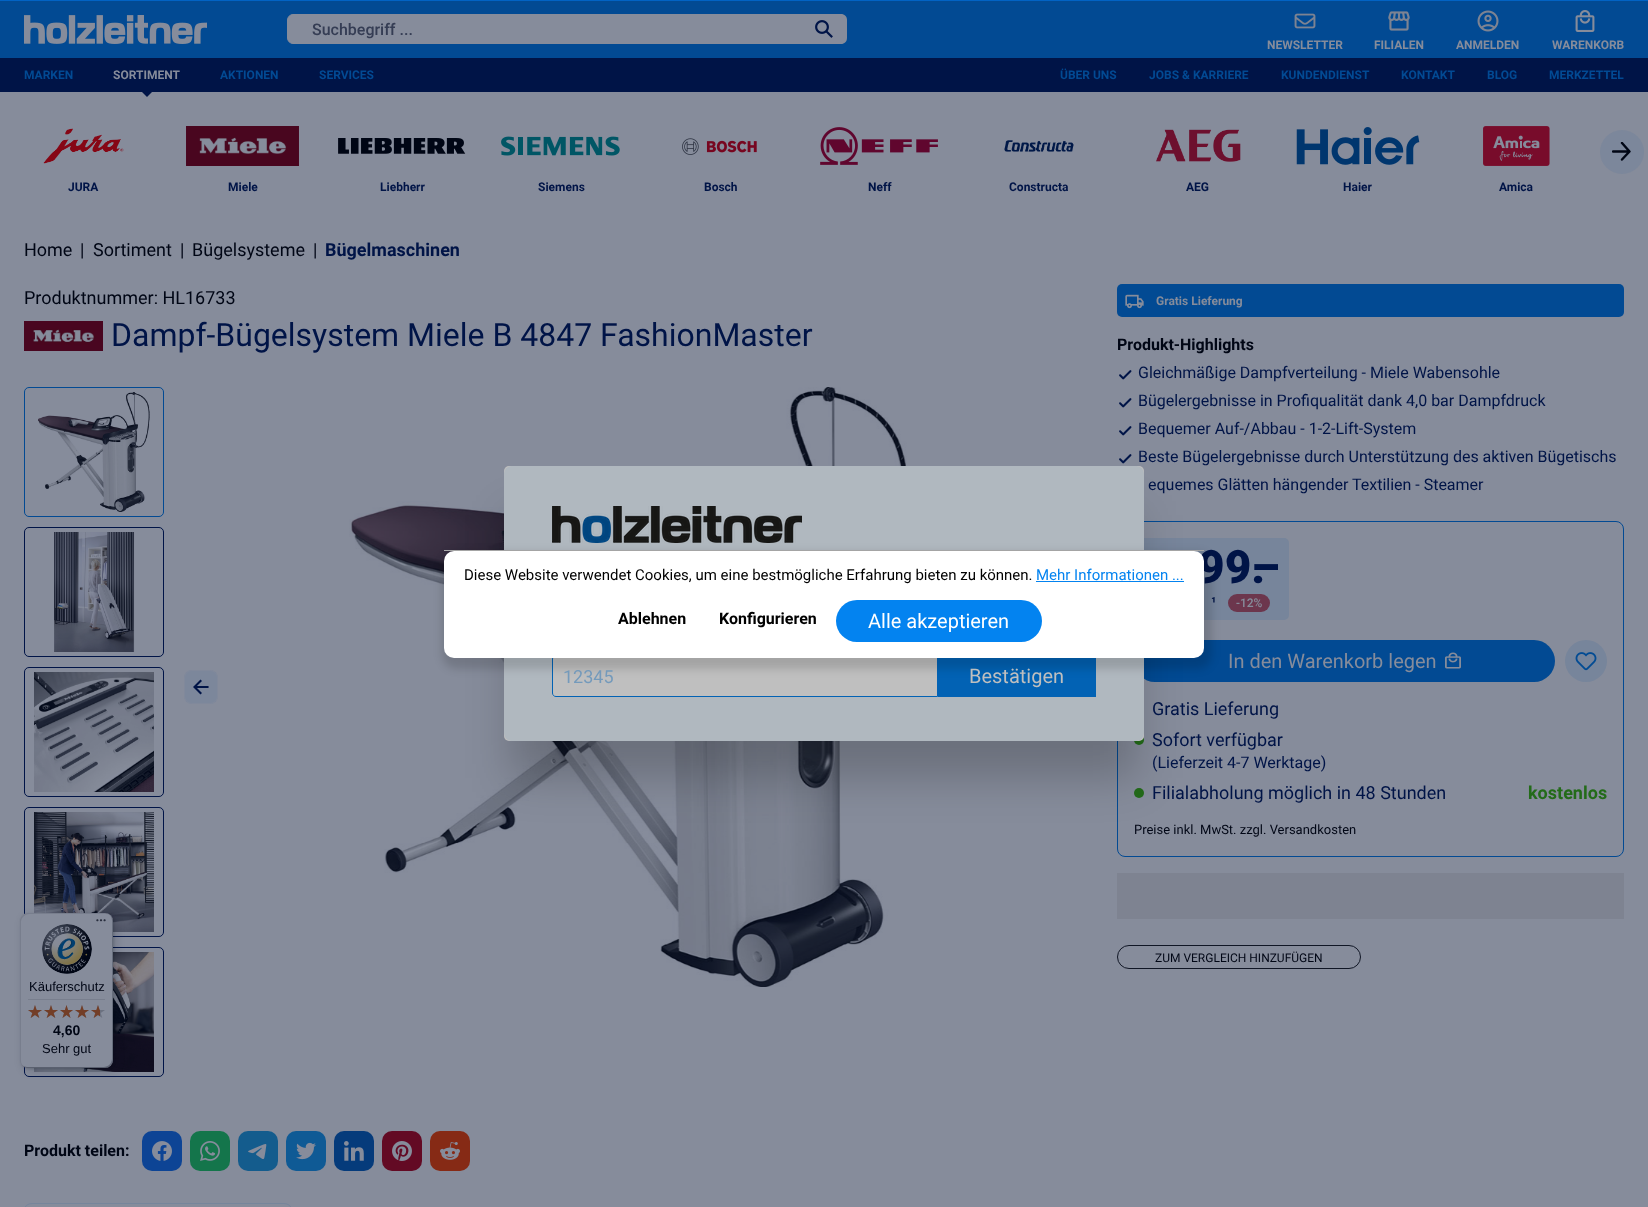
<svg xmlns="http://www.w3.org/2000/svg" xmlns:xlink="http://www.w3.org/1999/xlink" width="1648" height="1207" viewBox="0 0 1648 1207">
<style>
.cls-1{font:500 16px Roboto;fill:#353d54}
.cls-2{font:bold 12px Roboto;fill:#868c9b}
.cls-3{font:bold 12px Roboto;fill:#024a93}
.cls-4{font:bold 12px Roboto;fill:#001447}
.cls-5{font:18px Roboto;fill:#000615}
.cls-6{font:bold 18px Roboto;fill:#001447}
.cls-7{font:32px Roboto;fill:#001447}
.cls-8{font:bold 16px Roboto;fill:#000615}
.cls-9{font:16px Roboto;fill:#001447}
.cls-10{font:900 46px Roboto;fill:#001447}
.cls-11{font:bold 14px Roboto;fill:#001447}
.cls-12{font:500 12px Roboto;fill:#868c9b}
.cls-13{font:20px Roboto;fill:#868c9b}
.cls-14{font:18px Roboto;fill:#001447}
.cls-15{font:bold 18px Roboto;fill:#236b19}
.cls-16{font:13px Roboto;fill:#000615}
.cls-17{font:12px Roboto;fill:#000615}
.cls-18{font:15px Roboto;fill:#000000}
.cls-19{font:15px Roboto;fill:#0383f0}
.cls-20{font:bold 16px Roboto;fill:#000000}
.cls-21{font:20px Roboto;fill:#ffffff}
.cls-22{font:18px Roboto;fill:#749abb}
.cls-23{font:20px Roboto;fill:#bfbfbf}
.cls-24{font:13px Liberation Sans;fill:#000615}
.cls-25{font:bold 14px Liberation Sans;fill:#000615}
</style>
<defs>
<clipPath id="clip1"><rect x="1612" y="142" width="20" height="20"/></clipPath>
</defs>
<rect width="100%" height="100%" fill="#868c9b"/>
<rect fill="#0263c4" x="0" y="0" width="1648" height="1"/>
<rect fill="#024a93" x="0" y="1" width="1648" height="57"/>
<image xlink:href="image0.png" x="24" y="15" width="183" height="29"/>
<path fill="#868c9b" stroke="#868c9b" d="M293 14.5H801.5V43.5H293C290 43.5 287.5 41 287.5 38V20C287.5 17 290 14.5 293 14.5Z"/>
<path fill="#868c9b" d="M801 14H841C844.5 14 847 16.5 847 20V38C847 41.5 844.5 44 841 44H801Z"/>
<image xlink:href="image1.png" x="815" y="20" width="18" height="18"/>
<image xlink:href="image2.png" x="1294" y="13" width="22" height="16"/>
<image xlink:href="image3.png" x="1388" y="11" width="22" height="20"/>
<image xlink:href="image4.png" x="1477" y="10" width="22" height="22"/>
<image xlink:href="image5.png" x="1575" y="10" width="20" height="22"/>
<rect fill="#001447" x="0" y="58" width="1648" height="34"/>
<path fill="#001447" d="M142 92H152L147 97Z"/>
<circle fill="#7c879b" cx="1622" cy="152" r="22"/>
<g clip-path="url(#clip1)">
<path fill="none" stroke="#000615" stroke-width="2.4" stroke-linecap="round" stroke-linejoin="round" d="M1622 143L1629.5 151.5L1622 159.5M1628.5 151.5H1613"/>
</g>
<image xlink:href="image6.png" x="43" y="128" width="81" height="36"/>
<image xlink:href="image7.png" x="186" y="126" width="113" height="40"/>
<image xlink:href="image8.png" x="338" y="138" width="128" height="16"/>
<image xlink:href="image9.png" x="501" y="136" width="119" height="20"/>
<image xlink:href="image10.png" x="682" y="138" width="75" height="17"/>
<image xlink:href="image11.png" x="820" y="127" width="118" height="38"/>
<image xlink:href="image12.png" x="1004" y="140" width="70" height="12"/>
<image xlink:href="image13.png" x="1156" y="129" width="85" height="33"/>
<image xlink:href="image14.png" x="1296" y="127" width="124" height="38"/>
<image xlink:href="image15.png" x="1483" y="126" width="67" height="40"/>
<image xlink:href="image16.png" x="24" y="321" width="79" height="30"/>
<rect fill="none" stroke="#024a93" x="24.5" y="387.5" width="139" height="129" rx="4.5"/>
<image xlink:href="image17.png" x="38" y="392" width="112" height="120"/>
<rect fill="none" stroke="#001447" x="24.5" y="527.5" width="139" height="129" rx="4.5"/>
<image xlink:href="image18.png" x="54" y="532" width="81" height="120"/>
<rect fill="none" stroke="#001447" x="24.5" y="667.5" width="139" height="129" rx="4.5"/>
<image xlink:href="image19.png" x="34" y="672" width="120" height="120"/>
<rect fill="none" stroke="#001447" x="24.5" y="807.5" width="139" height="129" rx="4.5"/>
<image xlink:href="image20.png" x="34" y="812" width="120" height="120"/>
<rect fill="none" stroke="#001447" x="24.5" y="947.5" width="139" height="129" rx="4.5"/>
<image xlink:href="image21.png" x="34" y="952" width="120" height="120"/>
<rect fill="#7c879b" x="184" y="670" width="34" height="34" rx="8"/>
<rect fill="none" stroke="#868c9b" stroke-opacity="0.5" x="184.5" y="670.5" width="33" height="33" rx="7.5"/>
<path fill="none" stroke="#001447" stroke-width="2.1" stroke-linecap="square" d="M200.5 693L194.5 687L200.5 681M195 687H207.5"/>
<image xlink:href="image22.png" x="349" y="387" width="560" height="600"/>
<rect fill="#0d4495" x="142" y="1131" width="40" height="40" rx="10"/>
<image xlink:href="image23.png" x="152" y="1141" width="20" height="20"/>
<rect fill="#14754b" x="190" y="1131" width="40" height="40" rx="10"/>
<image xlink:href="image24.png" x="200" y="1141" width="20" height="20"/>
<rect fill="#145c8d" x="238" y="1131" width="40" height="40" rx="10"/>
<image xlink:href="image25.png" x="248" y="1144" width="19" height="16"/>
<rect fill="#0f5a95" x="286" y="1131" width="40" height="40" rx="10"/>
<image xlink:href="image26.png" x="296" y="1142" width="20" height="18"/>
<rect fill="#053b7b" x="334" y="1131" width="40" height="40" rx="10"/>
<image xlink:href="image27.png" x="344" y="1141" width="20" height="20"/>
<rect fill="#630a24" x="382" y="1131" width="40" height="40" rx="10"/>
<image xlink:href="image28.png" x="392" y="1141" width="20" height="20"/>
<rect fill="#862a15" x="430" y="1131" width="40" height="40" rx="10"/>
<image xlink:href="image29.png" x="440" y="1142" width="20" height="18"/>
<rect fill="none" stroke="#77859b" x="24.5" y="1203.5" width="267" height="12" rx="7.5"/>
<rect fill="#024a93" x="1117" y="284" width="507" height="33" rx="5"/>
<image xlink:href="image30.png" x="1125" y="294" width="19" height="15"/>
<image xlink:href="image31.png" x="1119" y="370" width="13" height="10"/>
<image xlink:href="image31.png" x="1119" y="398" width="13" height="10"/>
<image xlink:href="image31.png" x="1119" y="426" width="13" height="10"/>
<image xlink:href="image31.png" x="1119" y="454" width="13" height="10"/>
<rect fill="none" stroke="#024a93" x="1117.5" y="521.5" width="506" height="335" rx="7.5"/>
<rect fill="#77859b" x="1134" y="538" width="155" height="82" rx="5"/>
<rect fill="#6c364d" x="1228" y="594" width="42" height="18" rx="9"/>
<rect fill="#024a93" x="1134" y="640" width="421" height="42" rx="21"/>
<image xlink:href="image32.png" x="1445" y="652" width="16" height="17"/>
<circle fill="#77859b" cx="1586" cy="661" r="21"/>
<image xlink:href="image33.png" x="1575" y="652" width="22" height="19"/>
<circle fill="#236b19" cx="1139" cy="740" r="5"/>
<circle fill="#236b19" cx="1139" cy="793" r="5"/>
<rect fill="#7e8391" x="1117" y="873" width="507" height="46"/>
<rect fill="none" stroke="#101625" x="1117.5" y="945.5" width="243" height="23" rx="11.5"/>
<rect fill="#000000" fill-opacity="0.2" filter="blur(21.5px)" x="510" y="515" width="628" height="263"/>
<rect fill="#bfbfbf" x="504" y="466" width="640" height="275" rx="5"/>
<rect fill="#b0b8bf" x="504" y="466" width="640" height="275" rx="8"/>
<image xlink:href="image34.png" x="552" y="506" width="250" height="37"/>
<path fill="#bfbfbf" stroke="#0262b4" d="M556 655.5H937.5V696.5H556C554 696.5 552.5 695 552.5 693V659C552.5 657 554 655.5 556 655.5Z"/>
<rect fill="#0262b4" x="938" y="658" width="158" height="39"/>
<rect fill="#000615" fill-opacity="0.15" filter="blur(4px)" x="23" y="916" width="93" height="155" rx="8"/>
<rect fill="#000615" fill-opacity="0.15" filter="blur(1px)" x="21" y="914" width="93" height="155" rx="8"/>
<rect fill="#868c9b" x="20" y="913" width="93" height="155" rx="8"/>
<path fill="#000615" fill-opacity="0.1" d="M29 914H106C108 914 110 915 112 917C110 915 108 913 105 913H28C24 913 20 917 20 921V1060C20 1063 22 1065 24 1067C22 1065 21 1063 21 1061V922C21 918 25 914 29 914Z"/>
<path fill="#000615" fill-opacity="0.2" d="M21 1064C23 1066 25 1068 28 1068H105C109 1068 113 1064 113 1060V921C113 918 111 916 109 914C111 916 112 918 112 920V1059C112 1063 108 1067 104 1067H27C25 1067 23 1066 21 1064Z"/>
<path fill="#1a202f" fill-opacity="0.2" d="M22 1065C23 1067 26 1068 28 1068H105C109 1068 113 1064 113 1060V921C113 919 112 916 110 915C111 916 112 918 112 920V1059C112 1064 109 1067 104 1067H27C25 1067 23 1066 22 1065Z"/>
<path fill="#868c9b" fill-opacity="0.3" d="M104 1068H105C109 1068 113 1064 113 1060V921C113 919 112 916 110 915C111 916 112 918 112 920V1060C112 1064 109 1068 104 1068Z"/>
<image xlink:href="image35.png" x="96" y="919" width="10" height="3"/>
<image xlink:href="image36.png" x="42" y="924" width="50" height="50"/>
<rect fill="#787e8d" x="28" y="999" width="77" height="1"/>
<image xlink:href="image37.png" x="28" y="1005" width="14" height="13"/>
<image xlink:href="image37.png" x="44" y="1005" width="14" height="13"/>
<image xlink:href="image38.png" x="60" y="1005" width="13" height="13"/>
<image xlink:href="image37.png" x="75" y="1005" width="14" height="13"/>
<image xlink:href="image37.png" x="91" y="1005" width="14" height="13"/>
<image xlink:href="image39.png" x="28" y="1005" width="14" height="13"/>
<image xlink:href="image39.png" x="44" y="1005" width="14" height="13"/>
<image xlink:href="image40.png" x="60" y="1005" width="13" height="13"/>
<image xlink:href="image39.png" x="75" y="1005" width="14" height="13"/>
<image xlink:href="image41.png" x="91" y="1005" width="9" height="13"/>
<text class="cls-1" x="312" y="35">Suchbegriff ...</text>
<text class="cls-2" x="1267" y="49">NEWSLETTER</text>
<text class="cls-2" x="1374" y="49">FILIALEN</text>
<text class="cls-2" x="1456" y="49">ANMELDEN</text>
<text class="cls-2" x="1552" y="49">WARENKORB</text>
<text class="cls-3" x="24" y="79">MARKEN</text>
<text class="cls-2" x="113" y="79">SORTIMENT</text>
<text class="cls-3" x="220" y="79">AKTIONEN</text>
<text class="cls-3" x="319" y="79">SERVICES</text>
<text class="cls-3" x="1060" y="79">ÜBER UNS</text>
<text class="cls-3" x="1149" y="79">JOBS &amp; KARRIERE</text>
<text class="cls-3" x="1281" y="79">KUNDENDIENST</text>
<text class="cls-3" x="1401" y="79">KONTAKT</text>
<text class="cls-3" x="1487" y="79">BLOG</text>
<text class="cls-3" x="1549" y="79">MERKZETTEL</text>
<text class="cls-4" x="68" y="191">JURA</text>
<text class="cls-4" x="228" y="191">Miele</text>
<text class="cls-4" x="380" y="191">Liebherr</text>
<text class="cls-4" x="538" y="191">Siemens</text>
<text class="cls-4" x="704" y="191">Bosch</text>
<text class="cls-4" x="868" y="191">Neff</text>
<text class="cls-4" x="1009" y="191">Constructa</text>
<text class="cls-4" x="1186" y="191">AEG</text>
<text class="cls-4" x="1343" y="191">Haier</text>
<text class="cls-4" x="1499" y="191">Amica</text>
<text class="cls-5" x="24" y="256">Home</text>
<text class="cls-5" x="80" y="256">|</text>
<text class="cls-5" x="93" y="256">Sortiment</text>
<text class="cls-5" x="180" y="256">|</text>
<text class="cls-5" x="192" y="256">Bügelsysteme</text>
<text class="cls-5" x="313" y="256">|</text>
<text class="cls-6" x="325" y="256">Bügelmaschinen</text>
<text class="cls-5" x="24" y="304">Produktnummer: HL16733</text>
<text class="cls-7" x="111" y="346">Dampf-Bügelsystem Miele B 4847 FashionMaster</text>
<text class="cls-8" x="24" y="1156">Produkt teilen:</text>
<text class="cls-2" x="1156" y="305">Gratis Lieferung</text>
<text class="cls-8" x="1117" y="350">Produkt-Highlights</text>
<text class="cls-9"><tspan x="1138" y="378">Gleichmäßige Dampfverteilung - Miele Wabensohle</tspan><tspan x="1138" y="406">Bügelergebnisse in Profiqualität dank 4,0 bar Dampfdruck</tspan><tspan x="1138" y="434">Bequemer Auf-/Abbau - 1-2-Lift-System</tspan><tspan x="1138" y="462">Beste Bügelergebnisse durch Unterstützung des aktiven Bügetischs</tspan></text>
<text class="cls-9" x="1148" y="490">equemes Glätten hängender Textilien - Steamer</text>
<text class="cls-10" x="1198" y="583">99.</text>
<text class="cls-10" x="1251" y="583">–</text>
<text class="cls-11" x="1211" y="607">¹</text>
<text class="cls-12" x="1236" y="607">-12%</text>
<text class="cls-13" x="1228" y="668">In den Warenkorb legen</text>
<text class="cls-14"><tspan x="1152" y="715">Gratis Lieferung</tspan><tspan x="1152" y="746">Sofort verfügbar</tspan></text>
<text class="cls-9" x="1152" y="768">(Lieferzeit 4-7 Werktage)</text>
<text class="cls-14" x="1152" y="799">Filialabholung möglich in 48 Stunden</text>
<text class="cls-15" x="1528" y="799">kostenlos</text>
<text class="cls-16" x="1134" y="834">Preise inkl. MwSt. zzgl. Versandkosten</text>
<text class="cls-17" x="1155" y="962">ZUM VERGLEICH HINZUFÜGEN</text>
<rect fill="#adadad" x="444" y="550" width="760" height="1"/>
<rect fill="#000000" fill-opacity="0.14" filter="blur(4.5px)" x="442" y="552" width="770" height="117" rx="15"/>
<rect fill="#ffffff" x="444" y="551" width="760" height="107" rx="10"/>
<text class="cls-18" x="464" y="580">Diese Website verwendet Cookies, um eine bestmögliche Erfahrung bieten zu können.</text>
<text class="cls-19" x="1036" y="580">Mehr Informationen ...</text>
<rect fill="#0383f0" x="1036" y="581" width="148" height="1"/>
<text class="cls-20" x="618" y="624">Ablehnen</text>
<text class="cls-20" x="719" y="624">Konfigurieren</text>
<rect fill="#0383f0" x="836" y="600" width="206" height="42" rx="21"/>
<text class="cls-21" x="868" y="628">Alle akzeptieren</text>
<text class="cls-22" x="563" y="683">12345</text>
<text class="cls-23" x="969" y="683">Bestätigen</text>
<text class="cls-24" x="29" y="991">Käuferschutz</text>
<text class="cls-25" x="53" y="1035">4,60</text>
<text class="cls-24" x="42" y="1053">Sehr gut</text>
</svg>
